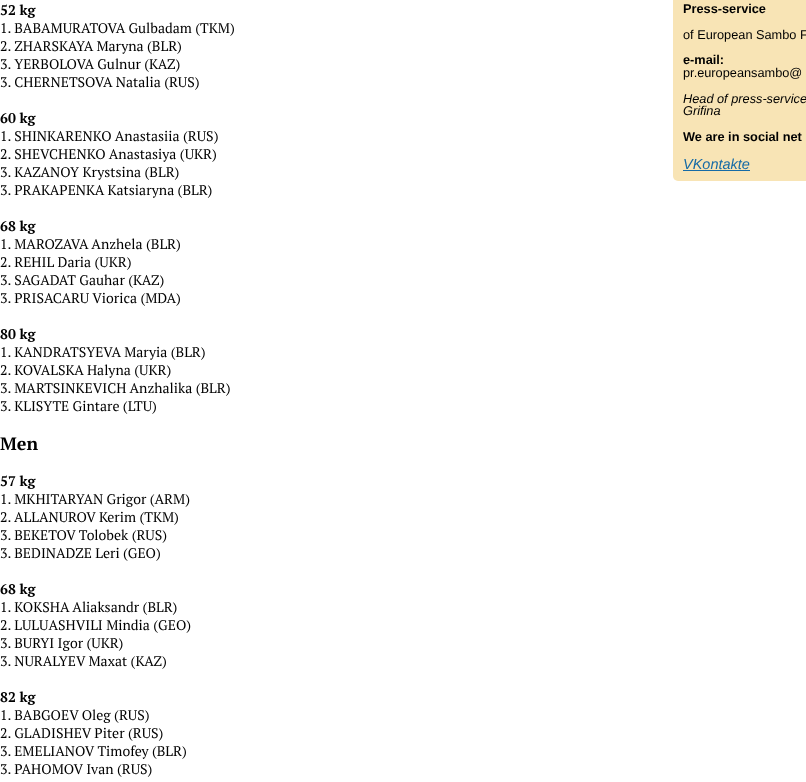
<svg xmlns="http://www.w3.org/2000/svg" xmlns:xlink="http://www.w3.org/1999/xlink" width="806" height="782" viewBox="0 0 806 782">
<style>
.cls-1{font:bold 14px PT Serif;fill:#000000}
.cls-2{font:14px PT Serif;fill:#000000}
.cls-3{font:bold 18px PT Serif;fill:#000000}
.cls-4{font:bold 12.75px Liberation Sans;fill:#000000}
.cls-5{font:12.75px Liberation Sans;fill:#000000}
.cls-6{font:italic 12.75px Liberation Sans;fill:#000000}
.cls-7{font:italic 14.5px Liberation Sans;fill:#166ba6}
</style>
<rect width="100%" height="100%" fill="#ffffff"/>
<rect fill="#f8e4b5" x="673" y="-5" width="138" height="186" rx="5"/>
<rect fill="#166ba6" x="683" y="170" width="67" height="1"/>
<text class="cls-1" x="0" y="15">52 kg</text>
<text class="cls-2"><tspan x="0" y="33">1. BABAMURATOVA Gulbadam (TKM)</tspan><tspan x="0" y="51">2. ZHARSKAYA Maryna (BLR)</tspan><tspan x="0" y="69">3. YERBOLOVA Gulnur (KAZ)</tspan><tspan x="0" y="87">3. CHERNETSOVA Natalia (RUS)</tspan></text>
<text class="cls-1" x="0" y="123">60 kg</text>
<text class="cls-2"><tspan x="0" y="141">1. SHINKARENKO Anastasiia (RUS)</tspan><tspan x="0" y="159">2. SHEVCHENKO Anastasiya (UKR)</tspan><tspan x="0" y="177">3. KAZANOY Krystsina (BLR)</tspan><tspan x="0" y="195">3. PRAKAPENKA Katsiaryna (BLR)</tspan></text>
<text class="cls-1" x="0" y="231">68 kg</text>
<text class="cls-2"><tspan x="0" y="249">1. MAROZAVA Anzhela (BLR)</tspan><tspan x="0" y="267">2. REHIL Daria (UKR)</tspan><tspan x="0" y="285">3. SAGADAT Gauhar (KAZ)</tspan><tspan x="0" y="303">3. PRISACARU Viorica (MDA)</tspan></text>
<text class="cls-1" x="0" y="339">80 kg</text>
<text class="cls-2"><tspan x="0" y="357">1. KANDRATSYEVA Maryia (BLR)</tspan><tspan x="0" y="375">2. KOVALSKA Halyna (UKR)</tspan><tspan x="0" y="393">3. MARTSINKEVICH Anzhalika (BLR)</tspan><tspan x="0" y="411">3. KLISYTE Gintare (LTU)</tspan></text>
<text class="cls-3" x="0" y="450">Men</text>
<text class="cls-1" x="0" y="486">57 kg</text>
<text class="cls-2"><tspan x="0" y="504">1. MKHITARYAN Grigor (ARM)</tspan><tspan x="0" y="522">2. ALLANUROV Kerim (TKM)</tspan><tspan x="0" y="540">3. BEKETOV Tolobek (RUS)</tspan><tspan x="0" y="558">3. BEDINADZE Leri (GEO)</tspan></text>
<text class="cls-1" x="0" y="594">68 kg</text>
<text class="cls-2"><tspan x="0" y="612">1. KOKSHA Aliaksandr (BLR)</tspan><tspan x="0" y="630">2. LULUASHVILI Mindia (GEO)</tspan><tspan x="0" y="648">3. BURYI Igor (UKR)</tspan><tspan x="0" y="666">3. NURALYEV Maxat (KAZ)</tspan></text>
<text class="cls-1" x="0" y="702">82 kg</text>
<text class="cls-2"><tspan x="0" y="720">1. BABGOEV Oleg (RUS)</tspan><tspan x="0" y="738">2. GLADISHEV Piter (RUS)</tspan><tspan x="0" y="756">3. EMELIANOV Timofey (BLR)</tspan><tspan x="0" y="774">3. PAHOMOV Ivan (RUS)</tspan></text>
<text class="cls-4" x="683" y="13">Press-service</text>
<text class="cls-5" x="683" y="39">of European Sambo F</text>
<text class="cls-4" x="683" y="64">e-mail:</text>
<text class="cls-5" x="683" y="77">pr.europeansambo@</text>
<text class="cls-6"><tspan x="683" y="103">Head of press-service</tspan><tspan x="683" y="115">Grifina</tspan></text>
<text class="cls-4" x="683" y="141">We are in social net</text>
<text class="cls-7" x="683" y="169">VKontakte</text>
</svg>
